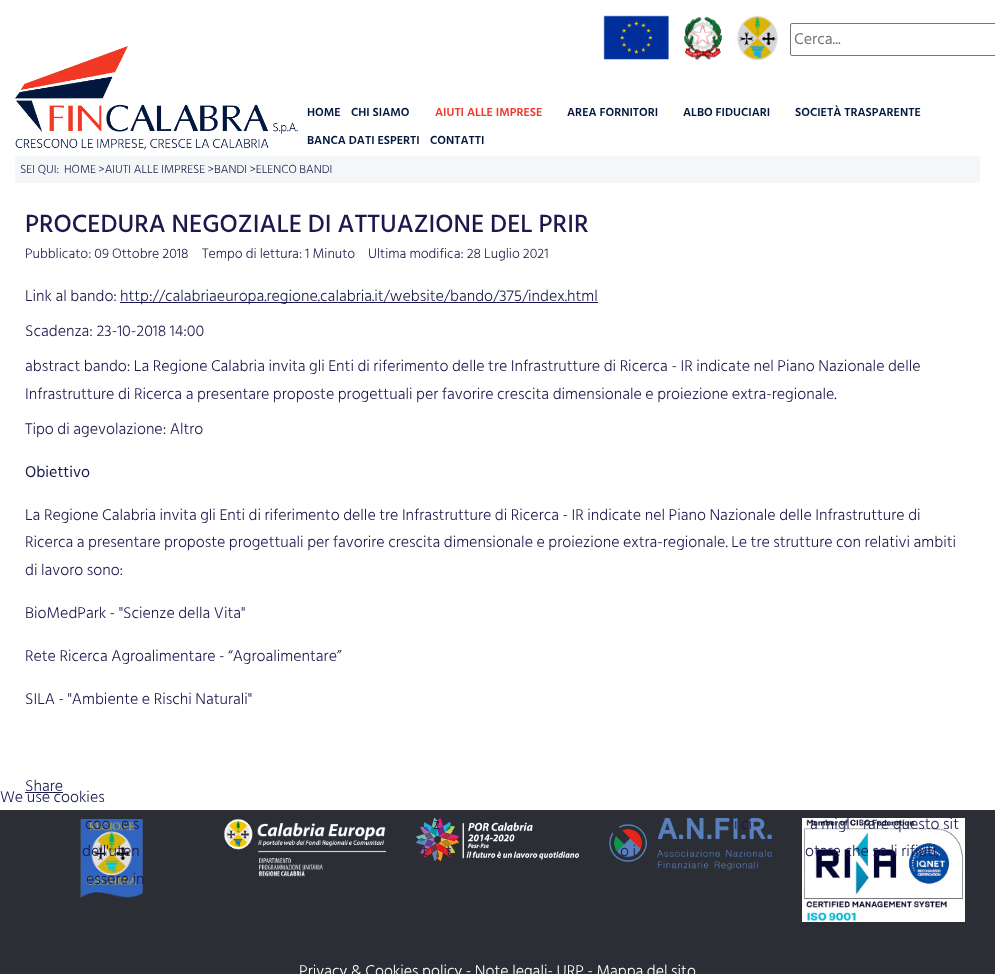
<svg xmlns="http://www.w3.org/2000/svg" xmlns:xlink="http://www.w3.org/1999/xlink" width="995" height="974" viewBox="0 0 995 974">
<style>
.cls-1{font:16px Hind Siliguri;fill:#757575}
.cls-2{font:600 12px Hind Siliguri;fill:#01173e}
.cls-3{font:600 12px Hind Siliguri;fill:#ed3a2e}
.cls-4{font:300 12px Hind Siliguri;fill:#1a184c}
.cls-5{font:500 25.6px Hind Siliguri;fill:#1a184c}
.cls-6{font:300 14px Hind Siliguri;fill:#1a184c}
.cls-7{font:300 16px Hind Siliguri;fill:#1a184c}
.cls-8{font:16px Hind Siliguri;fill:#1a184c}
.cls-9{font:300 16px Hind Siliguri;fill:#ffffff}
</style>
<rect width="100%" height="100%" fill="#ffffff"/>
<image xlink:href="image0.png" x="603" y="15" width="175" height="46"/>
<rect fill="none" stroke="#767676" x="790.5" y="23.5" width="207" height="32" rx="1.5"/>
<image xlink:href="image1.png" x="15" y="46" width="283" height="104"/>
<rect fill="#f5f6f7" x="15" y="156" width="965" height="27"/>
<rect fill="#1a184c" x="120" y="302" width="478" height="1"/>
<rect fill="#1a184c" x="25" y="792" width="38" height="1"/>
<rect fill="#2c2e36" x="0" y="810" width="995" height="164"/>
<image xlink:href="image2.png" x="80" y="819" width="63" height="79"/>
<image xlink:href="image3.png" x="223" y="818" width="163" height="59"/>
<image xlink:href="image4.png" x="416" y="818" width="163" height="43"/>
<image xlink:href="image5.png" x="609" y="818" width="163" height="52"/>
<image xlink:href="image6.png" x="802" y="818" width="163" height="104"/>
<text class="cls-1" x="794" y="44">Cerca...</text>
<text class="cls-2" x="307" y="116">HOME</text>
<text class="cls-2" x="351" y="116">CHI SIAMO</text>
<text class="cls-3" x="435" y="116">AIUTI ALLE IMPRESE</text>
<text class="cls-2" x="567" y="116">AREA FORNITORI</text>
<text class="cls-2" x="683" y="116">ALBO FIDUCIARI</text>
<text class="cls-2" x="795" y="116">SOCIETÀ TRASPARENTE</text>
<text class="cls-2" x="307" y="144">BANCA DATI ESPERTI</text>
<text class="cls-2" x="430" y="144">CONTATTI</text>
<text class="cls-4" x="20" y="173">SEI QUI:</text>
<text class="cls-4" x="64" y="173">HOME &gt;AIUTI ALLE IMPRESE &gt;BANDI &gt;ELENCO BANDI</text>
<text class="cls-5" x="25" y="232">PROCEDURA NEGOZIALE DI ATTUAZIONE DEL PRIR</text>
<text class="cls-6" x="25" y="258">Pubblicato: 09 Ottobre 2018</text>
<text class="cls-6" x="202" y="258">Tempo di lettura: 1 Minuto</text>
<text class="cls-6" x="368" y="258">Ultima modifica: 28 Luglio 2021</text>
<text class="cls-7" x="25" y="301">Link al bando:</text>
<text class="cls-7" x="120" y="301">http://calabriaeuropa.regione.calabria.it/website/bando/375/index.html</text>
<text class="cls-7" x="25" y="336">Scadenza: 23-10-2018 14:00</text>
<text class="cls-7"><tspan x="25" y="371">abstract bando: La Regione Calabria invita gli Enti di riferimento delle tre Infrastrutture di Ricerca - IR indicate nel Piano Nazionale delle</tspan><tspan x="25" y="399">Infrastrutture di Ricerca a presentare proposte progettuali per favorire crescita dimensionale e proiezione extra-regionale.</tspan></text>
<text class="cls-7" x="25" y="434">Tipo di agevolazione: Altro</text>
<text class="cls-8" x="25" y="477">Obiettivo</text>
<text class="cls-7"><tspan x="25" y="520">La Regione Calabria invita gli Enti di riferimento delle tre Infrastrutture di Ricerca - IR indicate nel Piano Nazionale delle Infrastrutture di</tspan><tspan x="25" y="547">Ricerca a presentare proposte progettuali per favorire crescita dimensionale e proiezione extra-regionale. Le tre strutture con relativi ambiti</tspan><tspan x="25" y="575">di lavoro sono:</tspan></text>
<text class="cls-7" x="25" y="618">BioMedPark - "Scienze della Vita"</text>
<text class="cls-7" x="25" y="661">Rete Ricerca Agroalimentare - “Agroalimentare”</text>
<text class="cls-7" x="25" y="704">SILA - "Ambiente e Rischi Naturali"</text>
<text class="cls-7" x="25" y="791">Share</text>
<text class="cls-9" x="299" y="976">Privacy &amp; Cookies policy - Note legali- URP - Mappa del sito</text>
<text class="cls-7" x="0" y="802">We use cookies</text>
<text class="cls-7" x="85" y="829">coo</text>
<text class="cls-7" x="121" y="829">e s</text>
<text class="cls-7" x="433" y="829">z</text>
<text class="cls-7" x="734" y="829">i ci</text>
<text class="cls-7" x="810" y="829">a migl</text>
<text class="cls-7" x="863" y="829">rare questo sit</text>
<text class="cls-7" x="82" y="856">dell'uten</text>
<text class="cls-7" x="422" y="856">t</text>
<text class="cls-7" x="446" y="856">t</text>
<text class="cls-7" x="620" y="856">o i</text>
<text class="cls-7" x="805" y="856">otare che se li rifiuti,</text>
<text class="cls-7" x="86" y="884">essere in</text>
</svg>
